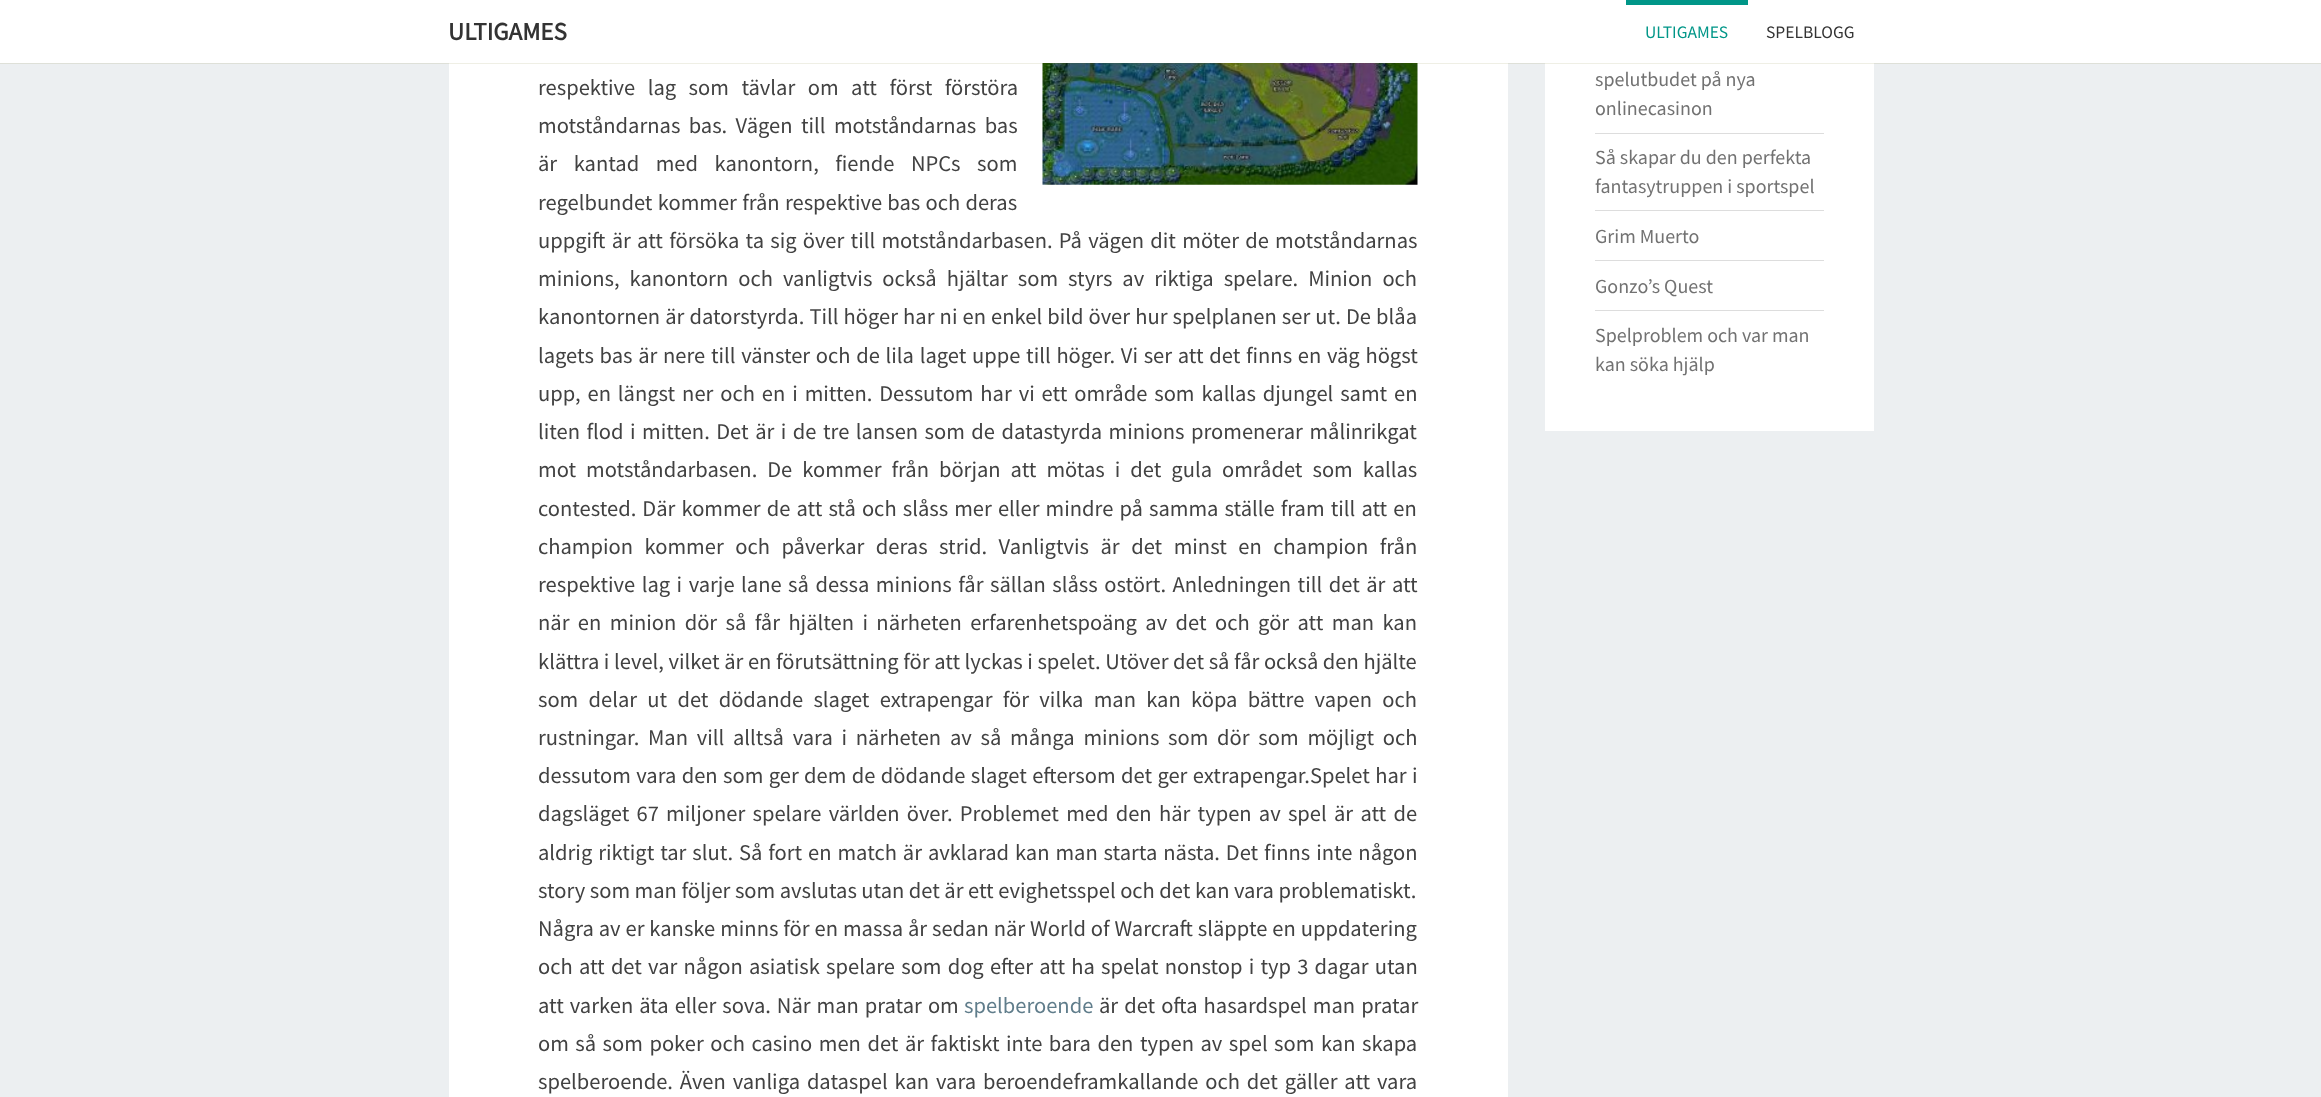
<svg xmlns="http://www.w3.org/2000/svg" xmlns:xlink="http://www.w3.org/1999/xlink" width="2321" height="1097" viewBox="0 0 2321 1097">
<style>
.cls-1{font:bold 25px Source Sans Pro;fill:#333333}
.cls-2{font:17.5px Source Sans Pro;fill:#009688}
.cls-3{font:17.5px Source Sans Pro;fill:#333333}
.cls-4{font:22.5px Source Sans Pro;fill:#424242}
.cls-5{font:22.5px Source Sans Pro;fill:#607d8b}
.cls-6{font:20px Source Sans Pro;fill:#727272}
</style>
<rect width="100%" height="100%" fill="#eceff1"/>
<rect fill="#ffffff" x="449" y="63" width="1059" height="1034"/>
<image xlink:href="image0.png" x="1042" y="63" width="376" height="122"/>
<rect fill="#ffffff" x="1545" y="63" width="329" height="368"/>
<rect fill="#646400" fill-opacity="0.1" filter="blur(0.5px)" x="0" y="1" width="2321" height="63"/>
<rect fill="#ffffff" x="0" y="0" width="2321" height="63"/>
<rect fill="#009688" x="1626" y="0" width="122" height="5"/>
<rect fill="#dddddd" x="1595" y="133" width="229" height="1"/>
<rect fill="#dddddd" x="1595" y="210" width="229" height="1"/>
<rect fill="#dddddd" x="1595" y="260" width="229" height="1"/>
<rect fill="#dddddd" x="1595" y="310" width="229" height="1"/>
<text class="cls-1" x="448" y="40">ULTIGAMES</text>
<text class="cls-2" x="1645" y="38">ULTIGAMES</text>
<text class="cls-3" x="1766" y="38">SPELBLOGG</text>
<text class="cls-4"><tspan x="538" y="95" word-spacing="8">respektive lag som tävlar om att först förstöra</tspan><tspan x="538" y="133" word-spacing="3.9">motståndarnas bas. Vägen till motståndarnas bas</tspan><tspan x="538" y="171" word-spacing="12">är kantad med kanontorn, fiende NPCs som</tspan><tspan x="538" y="210" word-spacing="0.75">regelbundet kommer från respektive bas och deras</tspan><tspan x="538" y="248" word-spacing="1.75">uppgift är att försöka ta sig över till motståndarbasen. På vägen dit möter de motståndarnas</tspan><tspan x="538" y="286" word-spacing="5.5">minions, kanontorn och vanligtvis också hjältar som styrs av riktiga spelare. Minion och</tspan><tspan x="538" y="324" word-spacing="0.6">kanontornen är datorstyrda. Till höger har ni en enkel bild över hur spelplanen ser ut. De blåa</tspan><tspan x="538" y="363" word-spacing="1.2">lagets bas är nere till vänster och de lila laget uppe till höger. Vi ser att det finns en väg högst</tspan><tspan x="538" y="401" word-spacing="2.4">upp, en längst ner och en i mitten. Dessutom har vi ett område som kallas djungel samt en</tspan><tspan x="538" y="439" word-spacing="2">liten flod i mitten. Det är i de tre lansen som de datastyrda minions promenerar målinrikgat</tspan><tspan x="538" y="477" word-spacing="5.5">mot motståndarbasen. De kommer från början att mötas i det gula området som kallas</tspan><tspan x="538" y="516" word-spacing="1.6">contested. Där kommer de att stå och slåss mer eller mindre på samma ställe fram till att en</tspan><tspan x="538" y="554" word-spacing="7">champion kommer och påverkar deras strid. Vanligtvis är det minst en champion från</tspan><tspan x="538" y="592" word-spacing="2">respektive lag i varje lane så dessa minions får sällan slåss ostört. Anledningen till det är att</tspan><tspan x="538" y="630" word-spacing="3.9">när en minion dör så får hjälten i närheten erfarenhetspoäng av det och gör att man kan</tspan><tspan x="538" y="669" word-spacing="0.1">klättra i level, vilket är en förutsättning för att lyckas i spelet. Utöver det så får också den hjälte</tspan><tspan x="538" y="707" word-spacing="5.75">som delar ut det dödande slaget extrapengar för vilka man kan köpa bättre vapen och</tspan><tspan x="538" y="745" word-spacing="4.25">rustningar. Man vill alltså vara i närheten av så många minions som dör som möjligt och</tspan><tspan x="538" y="783" word-spacing="0.9">dessutom vara den som ger dem de dödande slaget eftersom det ger extrapengar.Spelet har i</tspan><tspan x="538" y="821" word-spacing="2.75">dagsläget 67 miljoner spelare världen över. Problemet med den här typen av spel är att de</tspan><tspan x="538" y="860" word-spacing="1.4">aldrig riktigt tar slut. Så fort en match är avklarad kan man starta nästa. Det finns inte någon</tspan><tspan x="538" y="898">story som man följer som avslutas utan det är ett evighetsspel och det kan vara problematiskt.</tspan><tspan x="538" y="936" word-spacing="0.4">Några av er kanske minns för en massa år sedan när World of Warcraft släppte en uppdatering</tspan><tspan x="538" y="974" word-spacing="1.7">och att det var någon asiatisk spelare som dog efter att ha spelat nonstop i typ 3 dagar utan</tspan><tspan x="538" y="1013" word-spacing="1.5">att varken äta eller sova. När man pratar om</tspan></text>
<text class="cls-5" x="964" y="1013">spelberoende</text>
<text class="cls-4" x="1099" y="1013" word-spacing="1.5">är det ofta hasardspel man pratar</text>
<text class="cls-4"><tspan x="538" y="1051" word-spacing="2">om så som poker och casino men det är faktiskt inte bara den typen av spel som kan skapa</tspan><tspan x="538" y="1089" word-spacing="2.4">spelberoende. Även vanliga dataspel kan vara beroendeframkallande och det gäller att vara</tspan></text>
<text class="cls-6"><tspan x="1595" y="86">spelutbudet på nya</tspan><tspan x="1595" y="115">onlinecasinon</tspan></text>
<text class="cls-6"><tspan x="1595" y="164">Så skapar du den perfekta</tspan><tspan x="1595" y="193">fantasytruppen i sportspel</tspan></text>
<text class="cls-6" x="1595" y="243">Grim Muerto</text>
<text class="cls-6" x="1595" y="293">Gonzo’s Quest</text>
<text class="cls-6"><tspan x="1595" y="342">Spelproblem och var man</tspan><tspan x="1595" y="371">kan söka hjälp</tspan></text>
</svg>
